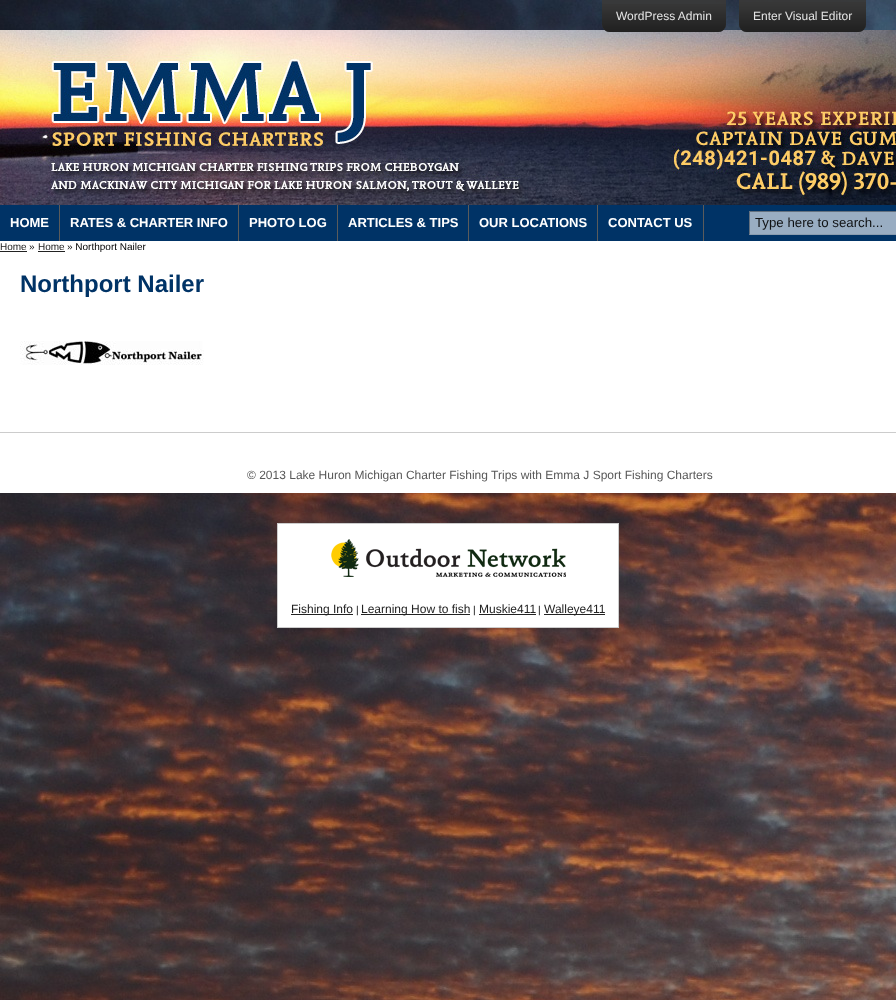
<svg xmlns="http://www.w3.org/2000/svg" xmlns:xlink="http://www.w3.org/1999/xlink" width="896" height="1000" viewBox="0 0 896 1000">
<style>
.cls-1{font:12px Liberation Sans;fill:#e4e4e4}
.cls-2{font:bold 13px Liberation Sans;fill:#ffffff}
.cls-3{font:13.25px Liberation Sans;fill:#0f1113}
.cls-4{font:10px Liberation Sans;fill:#222222}
.cls-5{font:10px Liberation Sans;fill:#000000}
.cls-6{font:bold 24px Liberation Sans;fill:#003366}
.cls-7{font:12px Liberation Sans;fill:#585858}
.cls-8{font:12px Liberation Sans;fill:#222222}
</style>
<rect width="100%" height="100%" fill="#ffffff"/>
<image xlink:href="image0.png" x="0" y="0" width="896" height="1000"/>
<image xlink:href="image3.png" x="0" y="30" width="896" height="175"/>
<path fill="#393939" fill-opacity="0.95" d="M602 0H726V24C726 28.5 722.5 32 718 32H610C605.5 32 602 28.5 602 24Z"/>
<image xlink:href="image1.png" x="602" y="4" width="124" height="28"/>
<path fill="#393939" fill-opacity="0.95" d="M739 0H866V24C866 28.5 862.5 32 858 32H747C742.5 32 739 28.5 739 24Z"/>
<image xlink:href="image2.png" x="739" y="2" width="127" height="30"/>
<rect fill="#ffffff" x="0" y="241" width="896" height="252"/>
<rect fill="#003366" x="0" y="205" width="896" height="36"/>
<rect fill="#5b5b5b" x="59" y="205" width="1" height="36"/>
<rect fill="#5b5b5b" x="238" y="205" width="1" height="36"/>
<rect fill="#5b5b5b" x="337" y="205" width="1" height="36"/>
<rect fill="#5b5b5b" x="468" y="205" width="1" height="36"/>
<rect fill="#5b5b5b" x="597" y="205" width="1" height="36"/>
<rect fill="#5b5b5b" x="703" y="205" width="1" height="36"/>
<rect fill="#99adc2" x="749" y="211" width="147" height="24"/>
<path fill="#63707e" d="M749 211H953L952 212H750Z"/>
<path fill="#8a9caf" d="M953 235H749L750 234H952Z"/>
<path fill="#000000" fill-opacity="0.35" d="M749 235V211L750 212V234Z"/>
<rect fill="#222222" x="0" y="251" width="27" height="1"/>
<rect fill="#222222" x="38" y="251" width="27" height="1"/>
<image xlink:href="image4.png" x="20" y="341" width="184" height="24"/>
<rect fill="#cccccc" x="0" y="432" width="896" height="1"/>
<rect fill="#ffffff" stroke="#cccccc" x="277.5" y="523.5" width="341" height="104"/>
<image xlink:href="image5.png" x="331" y="539" width="235" height="38"/>
<rect fill="#222222" x="291" y="614" width="62" height="1"/>
<rect fill="#222222" x="361" y="614" width="109" height="1"/>
<rect fill="#222222" x="479" y="614" width="57" height="1"/>
<rect fill="#222222" x="544" y="614" width="61" height="1"/>
<text class="cls-1" x="616" y="20">WordPress Admin</text>
<text class="cls-1" x="753" y="20">Enter Visual Editor</text>
<text class="cls-2" x="10" y="227">HOME</text>
<text class="cls-2" x="70" y="227">RATES &amp; CHARTER INFO</text>
<text class="cls-2" x="249" y="227">PHOTO LOG</text>
<text class="cls-2" x="348" y="227">ARTICLES &amp; TIPS</text>
<text class="cls-2" x="479" y="227">OUR LOCATIONS</text>
<text class="cls-2" x="608" y="227">CONTACT US</text>
<text class="cls-3" x="755" y="227">Type here to search...</text>
<text class="cls-4" x="0" y="250">Home</text>
<text class="cls-5" x="29" y="250">»</text>
<text class="cls-4" x="38" y="250">Home</text>
<text class="cls-5" x="67" y="250">» Northport Nailer</text>
<text class="cls-6" x="20" y="292">Northport Nailer</text>
<text class="cls-7" x="247" y="479">© 2013 Lake Huron Michigan Charter Fishing Trips with Emma J Sport Fishing Charters</text>
<text class="cls-8" x="291" y="613">Fishing Info</text>
<text class="cls-5" x="356" y="613">|</text>
<text class="cls-8" x="361" y="613">Learning How to fish</text>
<text class="cls-5" x="473" y="613">|</text>
<text class="cls-8" x="479" y="613">Muskie411</text>
<text class="cls-5" x="538" y="613">|</text>
<text class="cls-8" x="544" y="613">Walleye411</text>
</svg>
